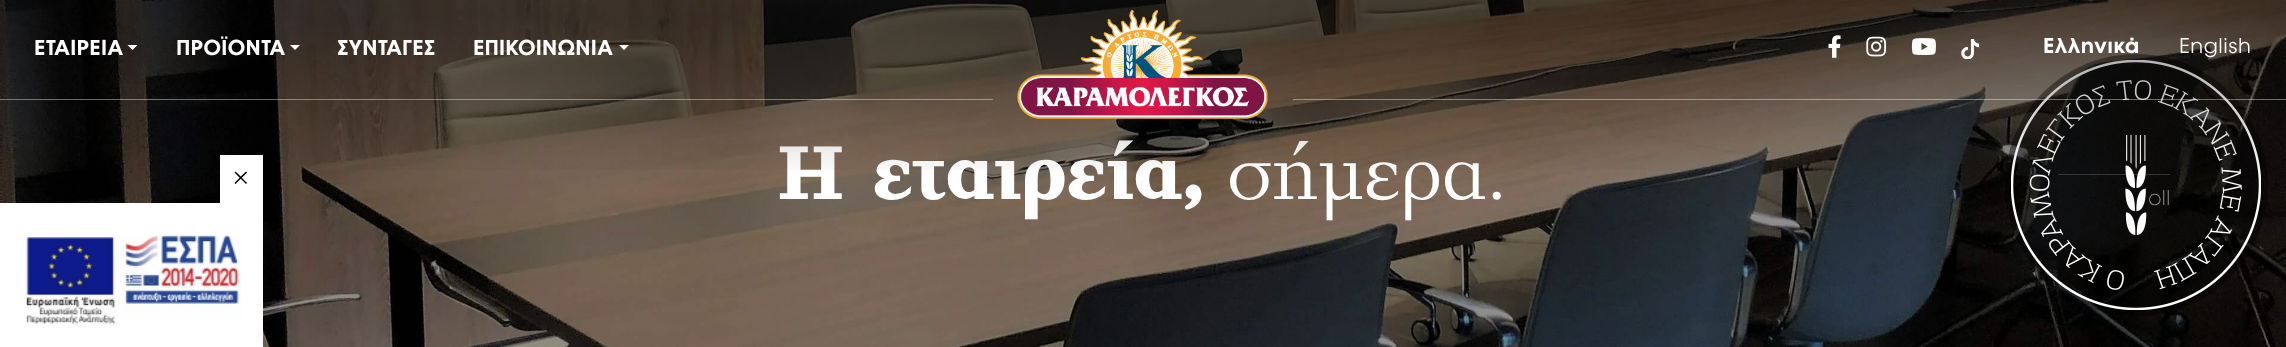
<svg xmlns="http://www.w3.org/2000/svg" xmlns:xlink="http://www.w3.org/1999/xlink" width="2286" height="347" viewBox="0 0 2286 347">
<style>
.cls-1{font:800 87.5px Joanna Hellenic;fill:#ffffff}
.cls-2{font:87.5px Joanna Hellenic;fill:#ffffff}
.cls-3{font:300 20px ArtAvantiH;fill:#ffffff}
.cls-4{font:bold 20px ArtAvantiH;fill:#ffffff}
.cls-5{font:20px ArtAvantiH;fill:#ffffff}
.cls-6{font:31px Liberation Serif;fill:#000000}
</style>
<defs>
<linearGradient id="g1" gradientUnits="userSpaceOnUse" x1="1143" y1="0" x2="1143" y2="179"><stop offset="0.1" stop-color="#000000" stop-opacity="0.4"/><stop offset="1" stop-color="#000000" stop-opacity="0"/></linearGradient>
</defs>
<rect width="100%" height="100%" fill="#ffffff"/>
<image xlink:href="image6.png" x="0" y="0" width="2286" height="347"/>
<rect fill="#ffffff" fill-opacity="0.3" x="2058" y="174" width="112" height="1"/>
<rect fill="#ffffff" x="0" y="203" width="263" height="144"/>
<image xlink:href="image7.png" x="23" y="235" width="219" height="90"/>
<text class="cls-1" x="778" y="199">Η εταιρεία,</text>
<text class="cls-2" x="1227" y="199">σήμερα.</text>
<text class="cls-3" x="2148" y="205">oll</text>
<rect fill="#000000" fill-opacity="0.4" x="2005" y="54" width="263" height="262" rx="131"/>
<image xlink:href="image5.png" x="2011" y="60" width="250" height="250"/>
<rect fill="url(#g1)" x="0" y="0" width="2286" height="170"/>
<rect fill="#ffffff" fill-opacity="0.4" x="0" y="99" width="993" height="1"/>
<image xlink:href="image0.png" x="1017" y="10" width="251" height="109"/>
<rect fill="#ffffff" fill-opacity="0.4" x="1293" y="99" width="993" height="1"/>
<path fill="#ffffff" d="M619 45H629L624 50Z"/>
<text class="cls-4" x="473" y="55">ΕΠΙΚΟΙΝΩΝΙΑ</text>
<text class="cls-4" x="337" y="55">ΣΥΝΤΑΓΕΣ</text>
<path fill="#ffffff" d="M290 45H300L295 50Z"/>
<text class="cls-4" x="176" y="55">ΠΡΟΪΟΝΤΑ</text>
<path fill="#ffffff" d="M127.5 45H137.5L132.5 50Z"/>
<text class="cls-4" x="34" y="55">ΕΤΑΙΡΕΙΑ</text>
<text class="cls-5" x="2179" y="53">English</text>
<text class="cls-4" x="2043" y="53">Ελληνικά</text>
<image xlink:href="image4.png" x="1961" y="39" width="19" height="20"/>
<image xlink:href="image3.png" x="1911" y="38" width="25" height="17"/>
<image xlink:href="image2.png" x="1866" y="36" width="20" height="21"/>
<image xlink:href="image1.png" x="1828" y="35" width="13" height="23"/>
<rect fill="#ffffff" x="220" y="155" width="43" height="48"/>
<text class="cls-6" x="232" y="188">×</text>
</svg>
